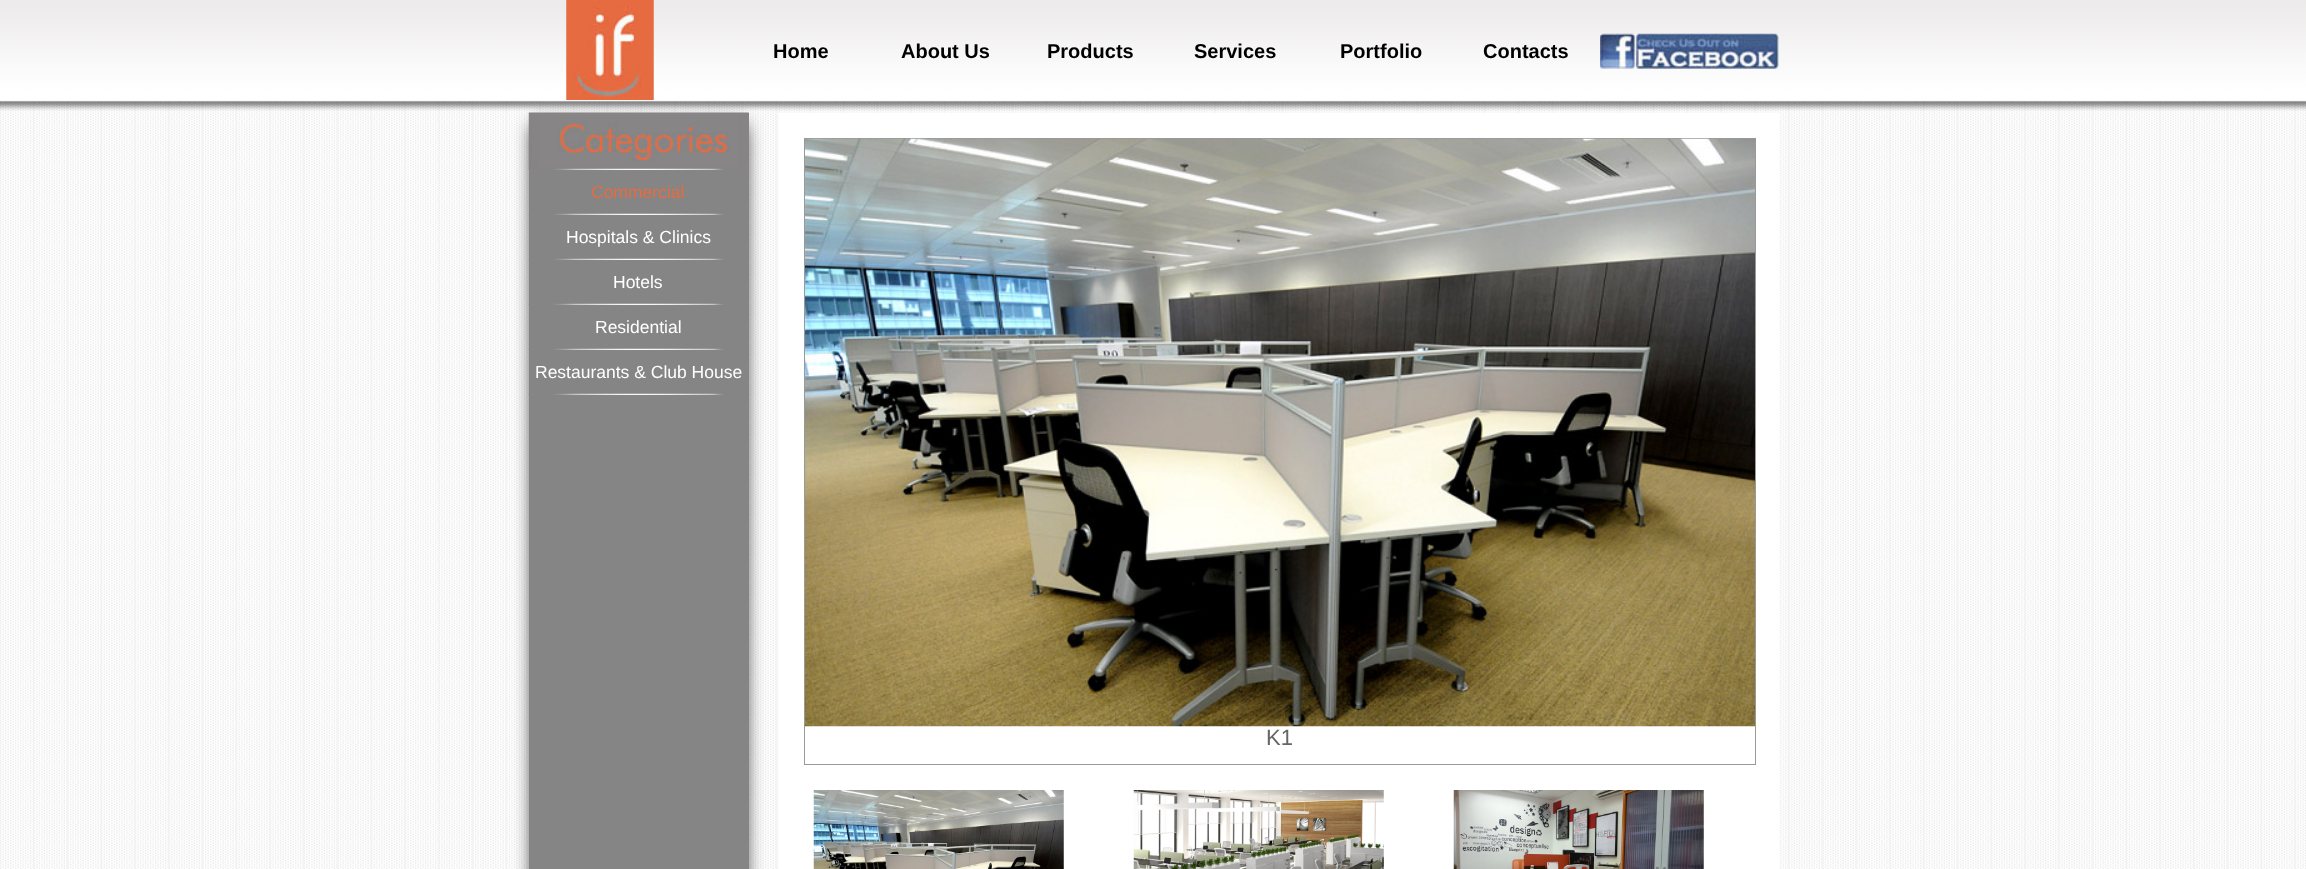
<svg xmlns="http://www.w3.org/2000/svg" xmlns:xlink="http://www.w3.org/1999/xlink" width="2306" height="869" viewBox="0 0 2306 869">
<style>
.cls-1{font:bold 20px Liberation Sans;fill:#000000}
.cls-2{font:17.5px Liberation Sans;fill:#e66b41}
.cls-3{font:17.5px Liberation Sans;fill:#ffffff}
.cls-4{font:22px Liberation Sans;fill:#666666}
</style>
<rect width="100%" height="100%" fill="#ffffff"/>
<image xlink:href="image0.png" x="0" y="0" width="2306" height="869"/>
<rect fill="#000000" filter="blur(9.5px)" x="534" y="125" width="210" height="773"/>
<image xlink:href="image1.png" x="0" y="0" width="2306" height="111"/>
<image xlink:href="image2.png" x="566" y="0" width="88" height="100"/>
<image xlink:href="image3.png" x="1600" y="33" width="179" height="36"/>
<rect fill="#868585" x="529" y="113" width="220" height="756"/>
<image xlink:href="image4.png" x="528" y="112" width="221" height="57"/>
<image xlink:href="image5.png" x="528" y="168" width="196" height="2"/>
<image xlink:href="image6.png" x="528" y="213" width="196" height="2"/>
<image xlink:href="image7.png" x="528" y="258" width="196" height="2"/>
<image xlink:href="image6.png" x="528" y="303" width="196" height="2"/>
<image xlink:href="image7.png" x="528" y="348" width="196" height="2"/>
<image xlink:href="image6.png" x="528" y="393" width="196" height="2"/>
<rect fill="#ffffff" x="779" y="113" width="1000" height="756"/>
<rect fill="none" stroke="#999999" x="804.5" y="138.5" width="951" height="626"/>
<image xlink:href="image8.png" x="805" y="138" width="950" height="589"/>
<image xlink:href="image9.png" x="813" y="790" width="251" height="79"/>
<image xlink:href="image10.png" x="1133" y="790" width="251" height="79"/>
<image xlink:href="image11.png" x="1453" y="790" width="251" height="79"/>
<text class="cls-1" x="773" y="58">Home</text>
<text class="cls-1" x="901" y="58">About Us</text>
<text class="cls-1" x="1047" y="58">Products</text>
<text class="cls-1" x="1194" y="58">Services</text>
<text class="cls-1" x="1340" y="58">Portfolio</text>
<text class="cls-1" x="1483" y="58">Contacts</text>
<text class="cls-2" x="591" y="198">Commercial</text>
<text class="cls-3" x="566" y="243">Hospitals &amp; Clinics</text>
<text class="cls-3" x="613" y="288">Hotels</text>
<text class="cls-3" x="595" y="333">Residential</text>
<text class="cls-3" x="535" y="378">Restaurants &amp; Club House</text>
<text class="cls-4" x="1266" y="745">K1</text>
</svg>
